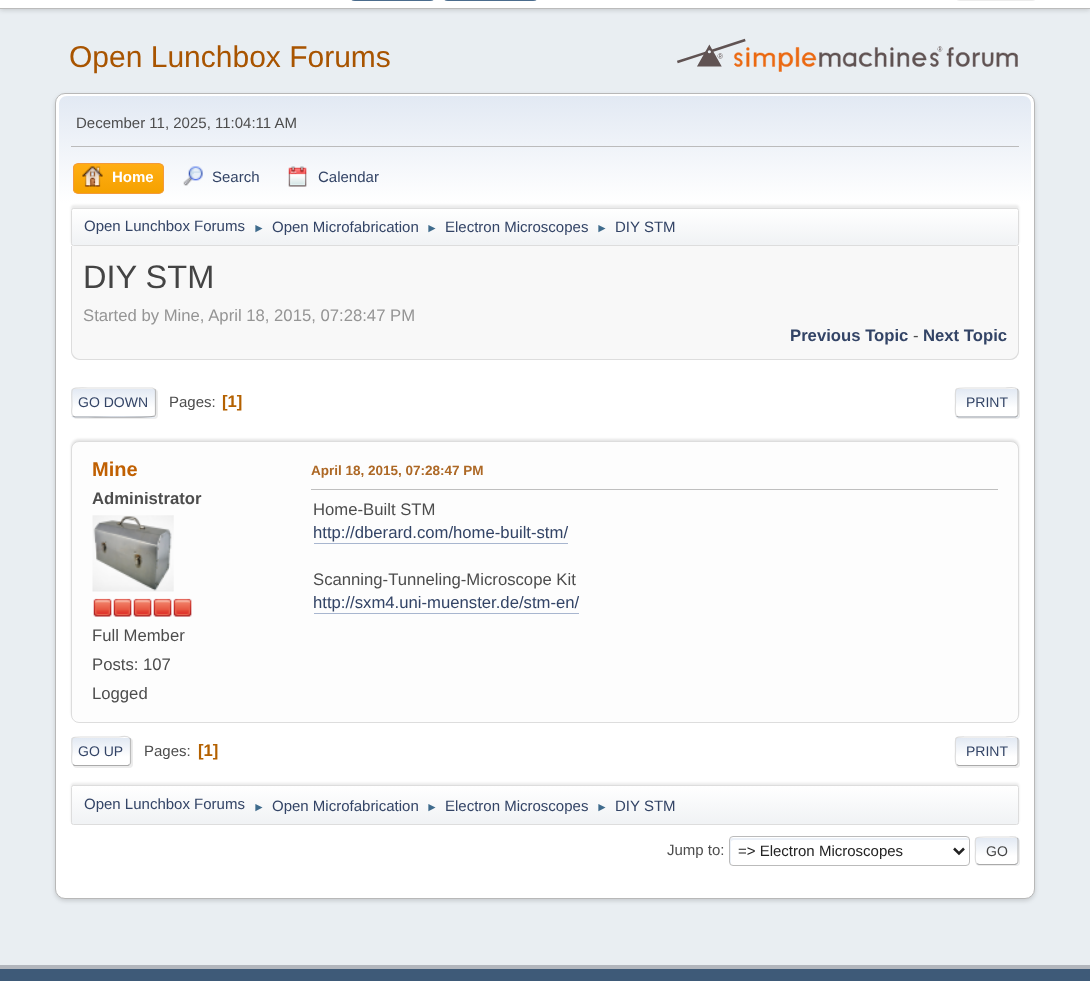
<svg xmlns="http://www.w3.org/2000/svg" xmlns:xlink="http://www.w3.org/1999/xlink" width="1090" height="981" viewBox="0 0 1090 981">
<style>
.cls-1{font:30px Liberation Sans;fill:#a85400}
.cls-2{font:15px Liberation Sans;fill:#4d4d4d}
.cls-3{font:bold 15px Liberation Sans;fill:#ffffff}
.cls-4{font:15px Liberation Sans;fill:#334466}
.cls-5{font:12px Liberation Sans;fill:#3f6b8c}
.cls-6{font:32.5px Liberation Sans;fill:#444444}
.cls-7{font:16.7px Liberation Sans;fill:#959595}
.cls-8{font:bold 16.7px Liberation Sans;fill:#334466}
.cls-9{font:16.7px Liberation Sans;fill:#4d4d4d}
.cls-10{font:14px Liberation Sans;fill:#334466}
.cls-11{font:bold 16.7px Liberation Sans;fill:#b46100}
.cls-12{font:bold 20px Liberation Sans;fill:#c06002}
.cls-13{font:bold 16.7px Liberation Sans;fill:#4d4d4d}
.cls-14{font:bold 13.5px Liberation Sans;fill:#ad6825}
.cls-15{font:16.7px Liberation Sans;fill:#334466}
.cls-16{font:15px Liberation Sans;fill:#222222}
.cls-17{font:14px Liberation Sans;fill:#444444}
</style>
<defs>
<linearGradient id="g1" gradientUnits="userSpaceOnUse" x1="545" y1="96" x2="545" y2="249"><stop offset="0" stop-color="#e2e9f3"/><stop offset="0.7" stop-color="#ffffff"/></linearGradient>
<clipPath id="clip1"><rect x="73" y="163" width="91" height="31" rx="5"/></clipPath>
<linearGradient id="g2" gradientUnits="userSpaceOnUse" x1="118" y1="164" x2="118" y2="193"><stop offset="0" stop-color="#ffae14"/><stop offset="1" stop-color="#f5a100"/></linearGradient>
<clipPath id="clip2"><rect x="71" y="208" width="948" height="38" rx="2.5"/></clipPath>
<linearGradient id="g3" gradientUnits="userSpaceOnUse" x1="545" y1="209" x2="545" y2="245"><stop offset="0" stop-color="#ffffff"/><stop offset="0.95" stop-color="#f1f3f5"/></linearGradient>
<clipPath id="clip3"><rect x="71" y="388" width="85" height="30" rx="4"/></clipPath>
<linearGradient id="g4" gradientUnits="userSpaceOnUse" x1="114" y1="389" x2="114" y2="416"><stop offset="0" stop-color="#e2e9f3"/><stop offset="0.7" stop-color="#ffffff"/></linearGradient>
<linearGradient id="g5" gradientUnits="userSpaceOnUse" x1="114" y1="416" x2="114" y2="444"><stop offset="0" stop-color="#e2e9f3"/><stop offset="0.7" stop-color="#ffffff"/></linearGradient>
<clipPath id="clip4"><rect x="955" y="388" width="64" height="30" rx="4"/></clipPath>
<linearGradient id="g6" gradientUnits="userSpaceOnUse" x1="987" y1="389" x2="987" y2="416"><stop offset="0" stop-color="#e2e9f3"/><stop offset="0.7" stop-color="#ffffff"/></linearGradient>
<linearGradient id="g7" gradientUnits="userSpaceOnUse" x1="987" y1="416" x2="987" y2="444"><stop offset="0" stop-color="#e2e9f3"/><stop offset="0.7" stop-color="#ffffff"/></linearGradient>
<clipPath id="clip5"><rect x="71" y="736" width="60" height="30" rx="4"/></clipPath>
<linearGradient id="g8" gradientUnits="userSpaceOnUse" x1="101" y1="738" x2="101" y2="765"><stop offset="0" stop-color="#e2e9f3"/><stop offset="0.7" stop-color="#ffffff"/></linearGradient>
<clipPath id="clip6"><path d="M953 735H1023V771H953ZM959 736H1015C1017 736 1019 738 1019 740V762C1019 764 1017 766 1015 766H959C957 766 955 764 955 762V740C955 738 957 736 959 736Z" clip-rule="evenodd"/></clipPath>
<clipPath id="clip7"><rect x="955" y="736" width="64" height="30" rx="4"/></clipPath>
<linearGradient id="g9" gradientUnits="userSpaceOnUse" x1="987" y1="738" x2="987" y2="765"><stop offset="0" stop-color="#e2e9f3"/><stop offset="0.7" stop-color="#ffffff"/></linearGradient>
<clipPath id="clip8"><rect x="71" y="785" width="948" height="40" rx="2.5"/></clipPath>
<linearGradient id="g10" gradientUnits="userSpaceOnUse" x1="545" y1="786" x2="545" y2="824"><stop offset="0" stop-color="#ffffff"/><stop offset="0.95" stop-color="#f1f3f5"/></linearGradient>
<clipPath id="clip9"><rect x="975" y="836" width="44" height="29" rx="4"/></clipPath>
<linearGradient id="g11" gradientUnits="userSpaceOnUse" x1="997" y1="838" x2="997" y2="864"><stop offset="0" stop-color="#e2e9f3"/><stop offset="0.7" stop-color="#ffffff"/></linearGradient>
<linearGradient id="g12" gradientUnits="userSpaceOnUse" x1="997" y1="864" x2="997" y2="890"><stop offset="0" stop-color="#e2e9f3"/><stop offset="0.7" stop-color="#ffffff"/></linearGradient>
</defs>
<rect width="100%" height="100%" fill="#e9eef2"/>
<rect fill="#000000" fill-opacity="0.16" filter="blur(2.5px)" x="0" y="-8" width="1090" height="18"/>
<rect fill="#ffffff" x="0" y="0" width="1090" height="8"/>
<rect fill="#bbbbbb" x="0" y="8" width="1090" height="1"/>
<rect fill="none" stroke="#4a6b8c" x="350.5" y="-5.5" width="84" height="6" rx="4.5"/>
<rect fill="none" stroke="#4a6b8c" x="443.5" y="-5.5" width="94" height="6" rx="4.5"/>
<rect fill="#dddddd" fill-opacity="0.57" filter="blur(0.5px)" x="956" y="-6" width="80" height="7" rx="4"/>
<path fill="none" stroke="#aaaaaa" stroke-width="1.2" d="M1033.5-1.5L1031.5-.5H958.5L956.5-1.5"/>
<image xlink:href="image0.png" x="677" y="38" width="341" height="34"/>
<rect fill="#000000" fill-opacity="0.14" filter="blur(2px)" x="55" y="95" width="980" height="806" rx="10"/>
<rect fill="#ffffff" stroke="#b8b8b8" x="55.5" y="93.5" width="979" height="805" rx="9.5"/>
<path fill="url(#g1)" d="M67 96H1023C1027.5 96 1031 99.5 1031 104V249H59V104C59 99.5 62.5 96 67 96Z"/>
<rect fill="#bbbbbb" x="71" y="146" width="948" height="1"/>
<g clip-path="url(#clip1)">
<rect fill="url(#g2)" x="73" y="164" width="91" height="29"/>
</g>
<rect fill="none" stroke="#f49a3a" x="73.5" y="163.5" width="90" height="30" rx="4.5"/>
<image xlink:href="image1.png" x="82" y="166" width="21" height="21"/>
<image xlink:href="image2.png" x="183" y="166" width="20" height="20"/>
<image xlink:href="image3.png" x="288" y="166" width="19" height="21"/>
<rect fill="#000000" fill-opacity="0.08" filter="blur(1px)" x="71" y="205" width="948" height="39" rx="2.5"/>
<g clip-path="url(#clip2)">
<rect fill="url(#g3)" x="71" y="209" width="948" height="36"/>
</g>
<rect fill="none" stroke="#dddddd" x="71.5" y="208.5" width="947" height="37" rx="2"/>
<path fill="#f8f8f8" d="M71 246H1019V351C1019 356 1015 360 1010 360H80C75 360 71 356 71 351Z"/>
<path fill="#dddddd" fill-rule="evenodd" d="M71 246H1019V351C1019 356 1015 360 1010 360H80C75 360 71 356 71 351ZM72 246H1018V351C1018 355 1014 359 1010 359H80C76 359 72 355 72 351Z"/>
<rect fill="#dddddd" fill-opacity="0.57" filter="blur(0.5px)" x="73" y="389" width="85" height="30" rx="4"/>
<rect fill="#ffffff" x="71" y="388" width="85" height="30" rx="4"/>
<g clip-path="url(#clip3)">
<rect fill="url(#g4)" x="71" y="389" width="85" height="27"/>
<rect fill="url(#g5)" x="71" y="416" width="85" height="2"/>
</g>
<path fill="none" stroke="#bbbbbb" stroke-width="1.2" d="M154.5 389C155.5 389.5 155.5 390.5 155.5 391V414C155.5 414.5 155.5 415.5 154.5 416"/>
<path fill="none" stroke="#aaaaaa" stroke-width="1.2" d="M154.5 416C152.5 418 95.5 417 88 417H75L73 416"/>
<path fill="none" stroke="#dddddd" stroke-width="1.2" d="M73 416C70.5 413.5 72 409 72 406C72 386 68 388 88 388H152.5L154.5 389"/>
<rect fill="#dddddd" fill-opacity="0.57" filter="blur(0.5px)" x="956" y="389" width="64" height="30" rx="4"/>
<rect fill="#ffffff" x="955" y="388" width="64" height="30" rx="4"/>
<g clip-path="url(#clip4)">
<rect fill="url(#g6)" x="955" y="389" width="64" height="27"/>
<rect fill="url(#g7)" x="955" y="416" width="64" height="2"/>
</g>
<path fill="none" stroke="#bbbbbb" stroke-width="1.2" d="M1017 389C1018 389.5 1018 390.5 1018 391V414C1018 414.5 1018 415.5 1017 416"/>
<path fill="none" stroke="#aaaaaa" stroke-width="1.2" d="M1017 416L1015.5 417H958.5L956.5 416"/>
<path fill="none" stroke="#dddddd" stroke-width="1.2" d="M956.5 416C954.5 414 955.5 405 955.5 402.5C955.5 387 953 388 968 388H1005.5C1006.5 388 1015 386.5 1017 389"/>
<rect fill="#000000" fill-opacity="0.1" filter="blur(1px)" x="71" y="439" width="948" height="281" rx="8"/>
<rect fill="#fdfdfd" stroke="#dddddd" x="71.5" y="441.5" width="947" height="281" rx="7.5"/>
<image xlink:href="image4.png" x="92" y="515" width="82" height="77"/>
<image xlink:href="image5.png" x="93" y="598" width="19" height="19"/>
<image xlink:href="image5.png" x="113" y="598" width="19" height="19"/>
<image xlink:href="image5.png" x="133" y="598" width="19" height="19"/>
<image xlink:href="image5.png" x="153" y="598" width="19" height="19"/>
<image xlink:href="image5.png" x="173" y="598" width="19" height="19"/>
<rect fill="#bfbfbf" x="311" y="489" width="687" height="1"/>
<rect fill="#a8b6cf" x="314" y="543" width="254" height="1"/>
<rect fill="#a8b6cf" x="314" y="613" width="265" height="1"/>
<rect fill="#dddddd" fill-opacity="0.57" filter="blur(0.5px)" x="73" y="738" width="60" height="30" rx="4"/>
<g clip-path="url(#clip5)">
<rect fill="url(#g8)" x="71" y="738" width="60" height="27"/>
</g>
<path fill="none" stroke="#bbbbbb" stroke-width="1.2" d="M129.5 738C130.5 738.5 130.5 739 130.5 740V762.5C130.5 763.5 130.5 764 129.5 764.5"/>
<path fill="none" stroke="#aaaaaa" stroke-width="1.2" d="M129.5 764.5L128 765.5H74.5L73 764.5"/>
<path fill="none" stroke="#dddddd" stroke-width="1.2" d="M73 764.5C70.5 762.5 72 754 72 751C72 736 69 737 84 737H119C119 737 127.5 735.5 129.5 738"/>
<g clip-path="url(#clip6)">
<rect fill="#dddddd" fill-opacity="0.57" filter="blur(0.5px)" x="956" y="738" width="64" height="30" rx="4"/>
</g>
<rect fill="#ffffff" x="955" y="736" width="64" height="30" rx="4"/>
<g clip-path="url(#clip7)">
<rect fill="url(#g9)" x="955" y="738" width="64" height="27"/>
</g>
<path fill="none" stroke="#bbbbbb" stroke-width="1.2" d="M1017 738C1018 738.5 1018 739 1018 740V762.5C1018 763.5 1018 764 1017 764.5"/>
<path fill="none" stroke="#aaaaaa" stroke-width="1.2" d="M1017 764.5L1015.5 765.5H958.5L956.5 764.5"/>
<path fill="none" stroke="#dddddd" stroke-width="1.2" d="M956.5 764.5C954.5 762.5 955.5 754 955.5 751C955.5 735.5 953 737 968 737H1005.5C1006.5 737 1015 735.5 1017 738"/>
<rect fill="#000000" fill-opacity="0.08" filter="blur(1px)" x="71" y="783" width="948" height="40" rx="2.5"/>
<g clip-path="url(#clip8)">
<rect fill="url(#g10)" x="71" y="786" width="948" height="38"/>
</g>
<rect fill="none" stroke="#dddddd" x="71.5" y="785.5" width="947" height="39" rx="2"/>
<path fill="#ecf1f8" d="M734 840H969C969 839 968 838 966 838H732C731 838 730 839 730 840V862C730 863 730 864 731 865V842C731 841 732 840 734 840Z"/>
<rect fill="none" stroke="#bbbbbb" x="729.5" y="836.5" width="240" height="29" rx="3.5"/>
<path fill="none" stroke="#222222" stroke-width="2.5" d="M954 848.5L959 853.5L964 848.5"/>
<rect fill="#dddddd" fill-opacity="0.57" filter="blur(0.5px)" x="976" y="838" width="44" height="28" rx="4"/>
<rect fill="#ffffff" x="975" y="836" width="44" height="29" rx="4"/>
<g clip-path="url(#clip9)">
<rect fill="url(#g11)" x="975" y="838" width="44" height="26"/>
<rect fill="url(#g12)" x="975" y="864" width="44" height="1"/>
</g>
<path fill="none" stroke="#bbbbbb" stroke-width="1.2" d="M1017 838C1018 838.5 1018 839 1018 840V861C1018 862 1018 863 1017 863.5"/>
<path fill="none" stroke="#aaaaaa" stroke-width="1.2" d="M1017 863.5L1015 864.5H979L976.5 863.5"/>
<path fill="none" stroke="#dddddd" stroke-width="1.2" d="M976.5 863.5C974.5 861.5 975.5 853 975.5 850.5C975.5 838 972.5 837 985 837H1009C1010.5 837 1015.5 836 1017 838"/>
<rect fill="#3e5a78" x="0" y="969" width="1090" height="12"/>
<rect fill="#b2b6bd" x="0" y="965" width="1090" height="4"/>
<text class="cls-1" x="69" y="67">Open Lunchbox Forums</text>
<text class="cls-2" x="76" y="128">December 11, 2025, 11:04:11 AM</text>
<text class="cls-3" x="112" y="182">Home</text>
<text class="cls-4" x="212" y="182">Search</text>
<text class="cls-4" x="318" y="182">Calendar</text>
<text class="cls-4" x="84" y="231">Open Lunchbox Forums</text>
<text class="cls-5" x="253" y="232">►</text>
<text class="cls-4" x="272" y="232">Open Microfabrication</text>
<text class="cls-5" x="426" y="232">►</text>
<text class="cls-4" x="445" y="232">Electron Microscopes</text>
<text class="cls-5" x="596" y="232">►</text>
<text class="cls-4" x="615" y="232">DIY STM</text>
<text class="cls-6" x="83" y="288">DIY STM</text>
<text class="cls-7" x="83" y="321">Started by Mine, April 18, 2015, 07:28:47 PM</text>
<text class="cls-8" x="790" y="341">Previous Topic</text>
<text class="cls-9" x="913" y="341">-</text>
<text class="cls-8" x="923" y="341">Next Topic</text>
<text class="cls-10" x="78" y="407">GO DOWN</text>
<text class="cls-2" x="169" y="407">Pages:</text>
<text class="cls-11" x="222" y="407">[1]</text>
<text class="cls-10" x="966" y="407">PRINT</text>
<text class="cls-12" x="92" y="476">Mine</text>
<text class="cls-13" x="92" y="504">Administrator</text>
<text class="cls-9"><tspan x="92" y="641">Full Member</tspan><tspan x="92" y="670">Posts: 107</tspan><tspan x="92" y="699">Logged</tspan></text>
<text class="cls-14" x="311" y="475">April 18, 2015, 07:28:47 PM</text>
<text class="cls-9" x="313" y="515">Home-Built STM</text>
<text class="cls-15" x="313" y="538">http://dberard.com/home-built-stm/</text>
<text class="cls-9" x="313" y="585">Scanning-Tunneling-Microscope Kit</text>
<text class="cls-15" x="313" y="608">http://sxm4.uni-muenster.de/stm-en/</text>
<text class="cls-10" x="78" y="756">GO UP</text>
<text class="cls-2" x="144" y="756">Pages:</text>
<text class="cls-11" x="198" y="756">[1]</text>
<text class="cls-10" x="966" y="756">PRINT</text>
<text class="cls-4" x="84" y="809">Open Lunchbox Forums</text>
<text class="cls-5" x="253" y="811">►</text>
<text class="cls-4" x="272" y="811">Open Microfabrication</text>
<text class="cls-5" x="426" y="811">►</text>
<text class="cls-4" x="445" y="811">Electron Microscopes</text>
<text class="cls-5" x="596" y="811">►</text>
<text class="cls-4" x="615" y="811">DIY STM</text>
<text class="cls-2" x="667" y="855">Jump to:</text>
<text class="cls-16" x="738" y="856">=&gt; Electron Microscopes</text>
<text class="cls-17" x="986" y="856">GO</text>
</svg>
